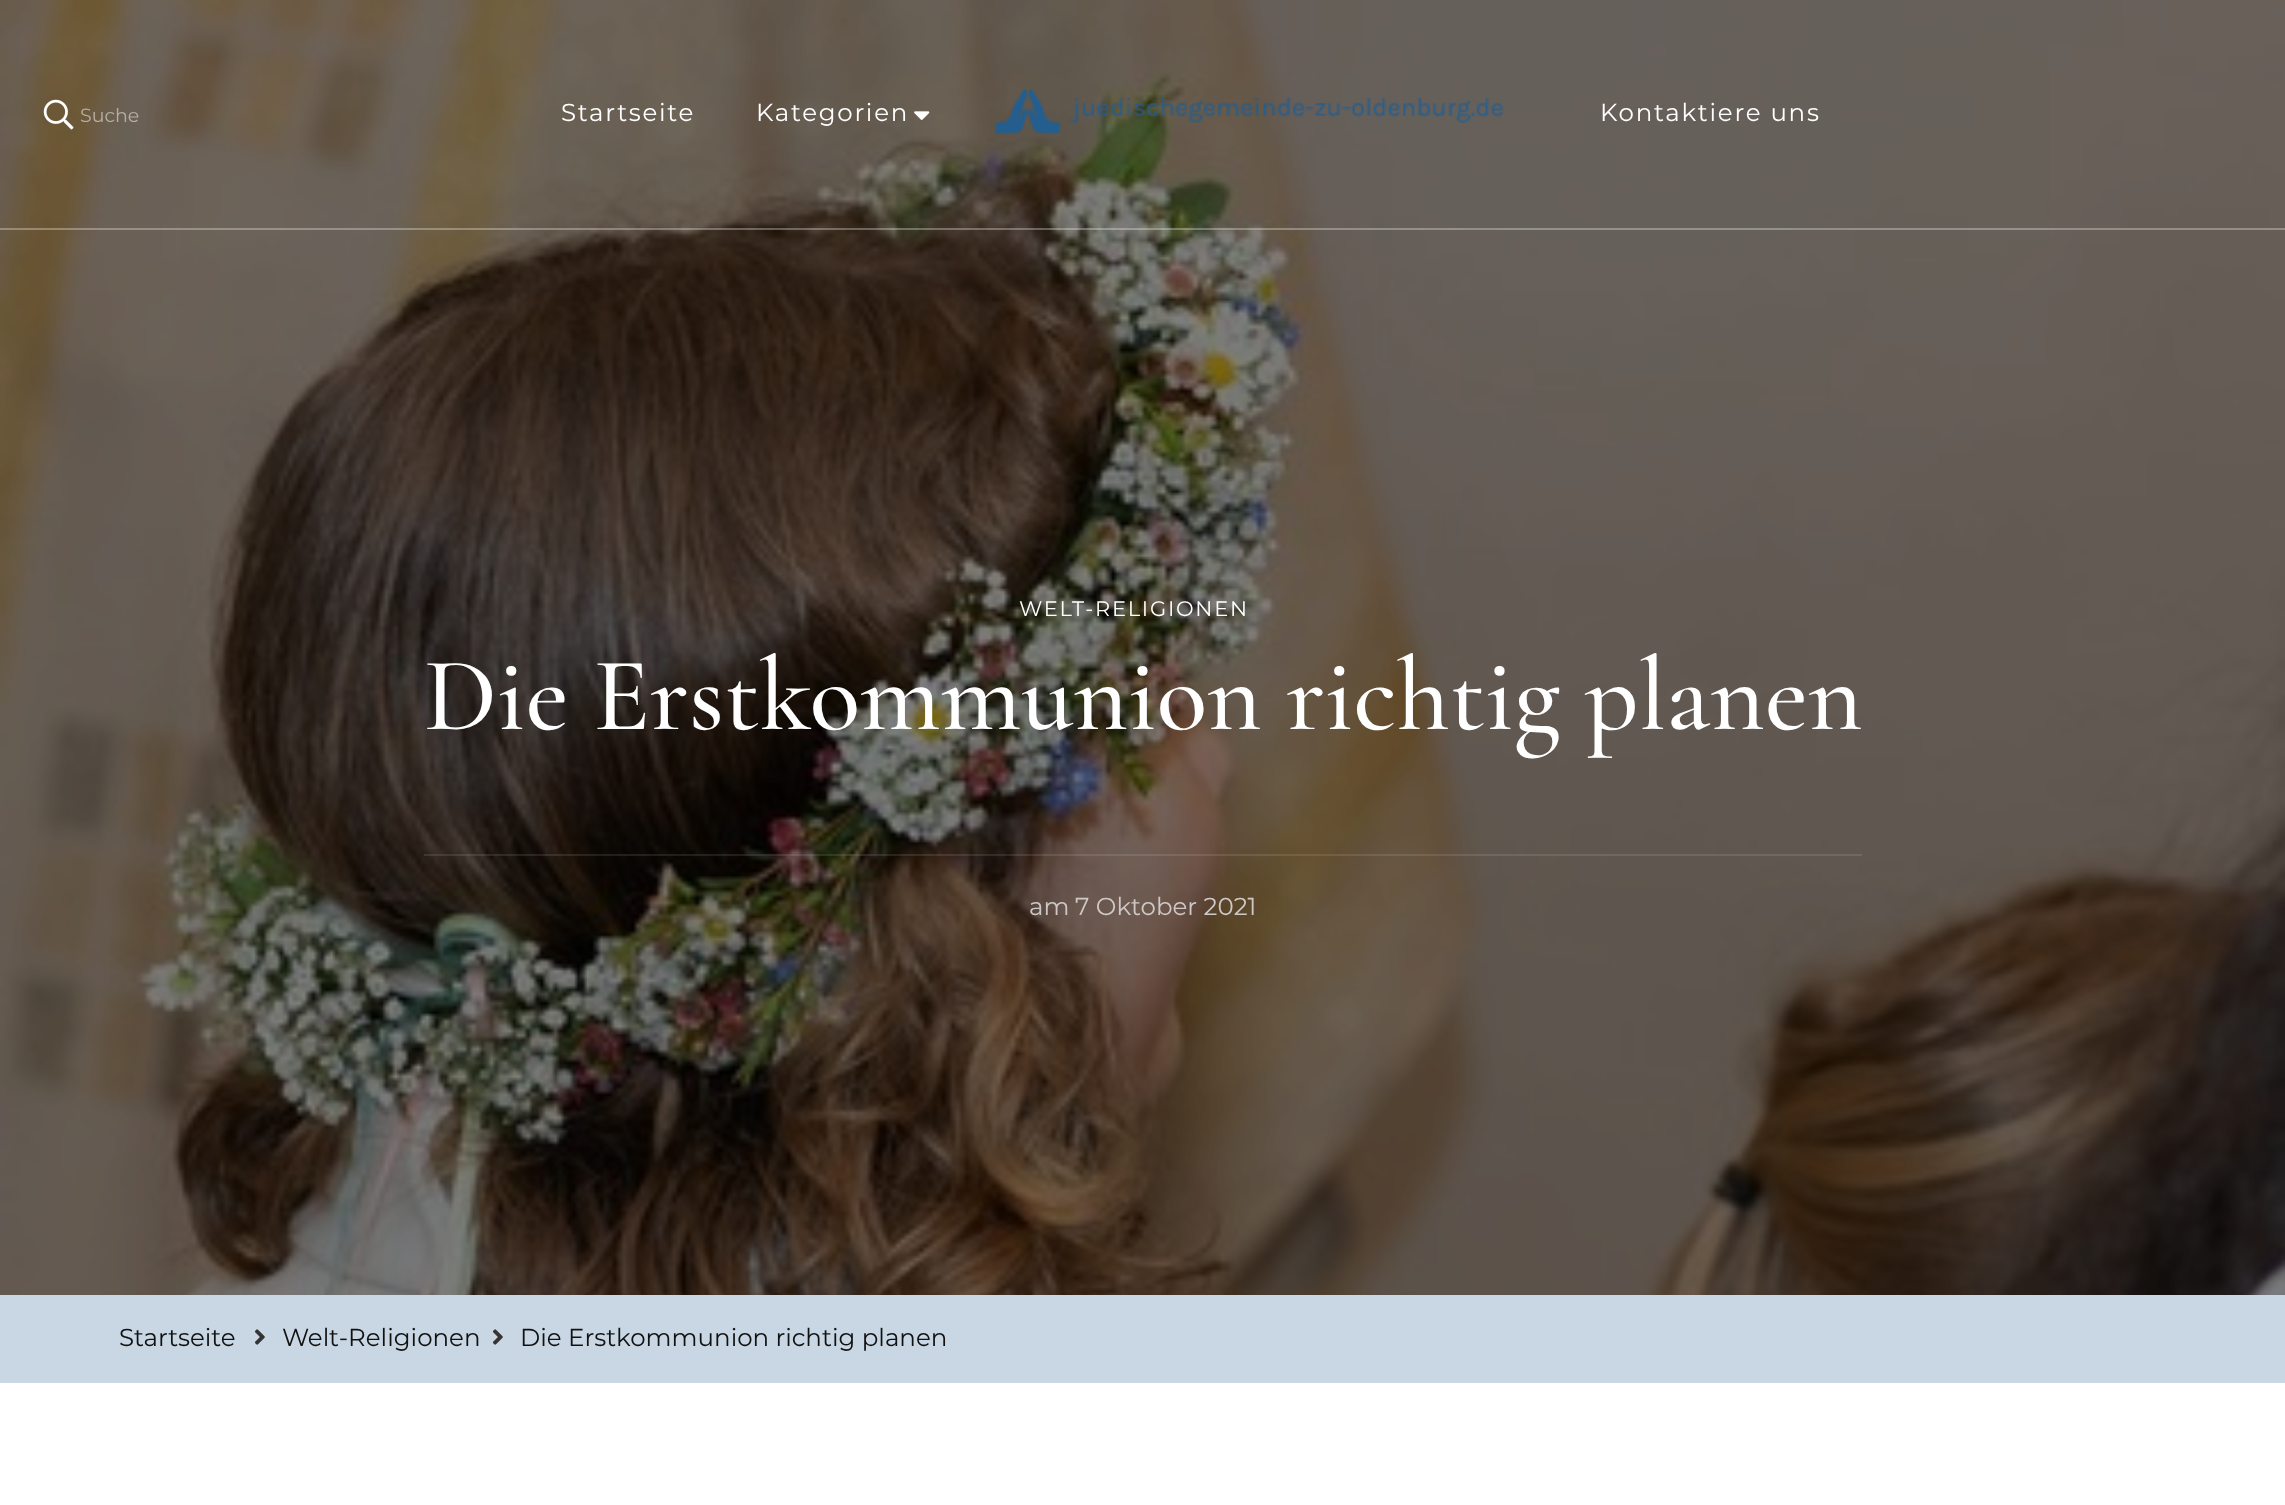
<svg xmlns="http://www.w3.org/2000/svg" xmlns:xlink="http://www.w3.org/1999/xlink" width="2285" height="1505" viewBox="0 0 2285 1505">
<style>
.cls-1{font:19px Montserrat;fill:#b5aea5}
.cls-2{font:24.5px Montserrat;letter-spacing:1.75px;fill:#ffffff}
.cls-3{font:21px Montserrat;letter-spacing:1.75px;fill:#ffffff}
.cls-4{font:500 105px Cormorant Garamond;fill:#ffffff}
.cls-5{font:24.5px Montserrat;fill:#cec9c7}
.cls-6{font:24.5px Montserrat;fill:#111111}
</style>
<rect width="100%" height="100%" fill="#ffffff"/>
<image xlink:href="image3.png" x="0" y="0" width="2285" height="1295"/>
<rect fill="#ffffff" fill-opacity="0.3" x="0" y="228" width="2285" height="2"/>
<image xlink:href="image0.png" x="43" y="99" width="31" height="31"/>
<image xlink:href="image1.png" x="914" y="111" width="16" height="9"/>
<image xlink:href="image2.png" x="995" y="89" width="509" height="46"/>
<rect fill="#ffffff" fill-opacity="0.1" x="424" y="854" width="1438" height="2"/>
<rect fill="#c9d7e4" x="0" y="1295" width="2285" height="88"/>
<image xlink:href="image4.png" x="254" y="1329" width="11" height="16"/>
<image xlink:href="image4.png" x="492" y="1329" width="11" height="16"/>
<text class="cls-1" x="80" y="122">Suche</text>
<text class="cls-2" x="561" y="121">Startseite</text>
<text class="cls-2" x="756" y="121">Kategorien</text>
<text class="cls-2" x="1600" y="121">Kontaktiere uns</text>
<text class="cls-3" x="1019" y="616">WELT-RELIGIONEN</text>
<text class="cls-4" x="424" y="729">Die Erstkommunion richtig planen</text>
<text class="cls-5" x="1029" y="915">am</text>
<text class="cls-5" x="1075" y="915">7 Oktober 2021</text>
<text class="cls-6" x="119" y="1346">Startseite</text>
<text class="cls-6" x="282" y="1346">Welt-Religionen</text>
<text class="cls-6" x="520" y="1346">Die Erstkommunion richtig planen</text>
</svg>
